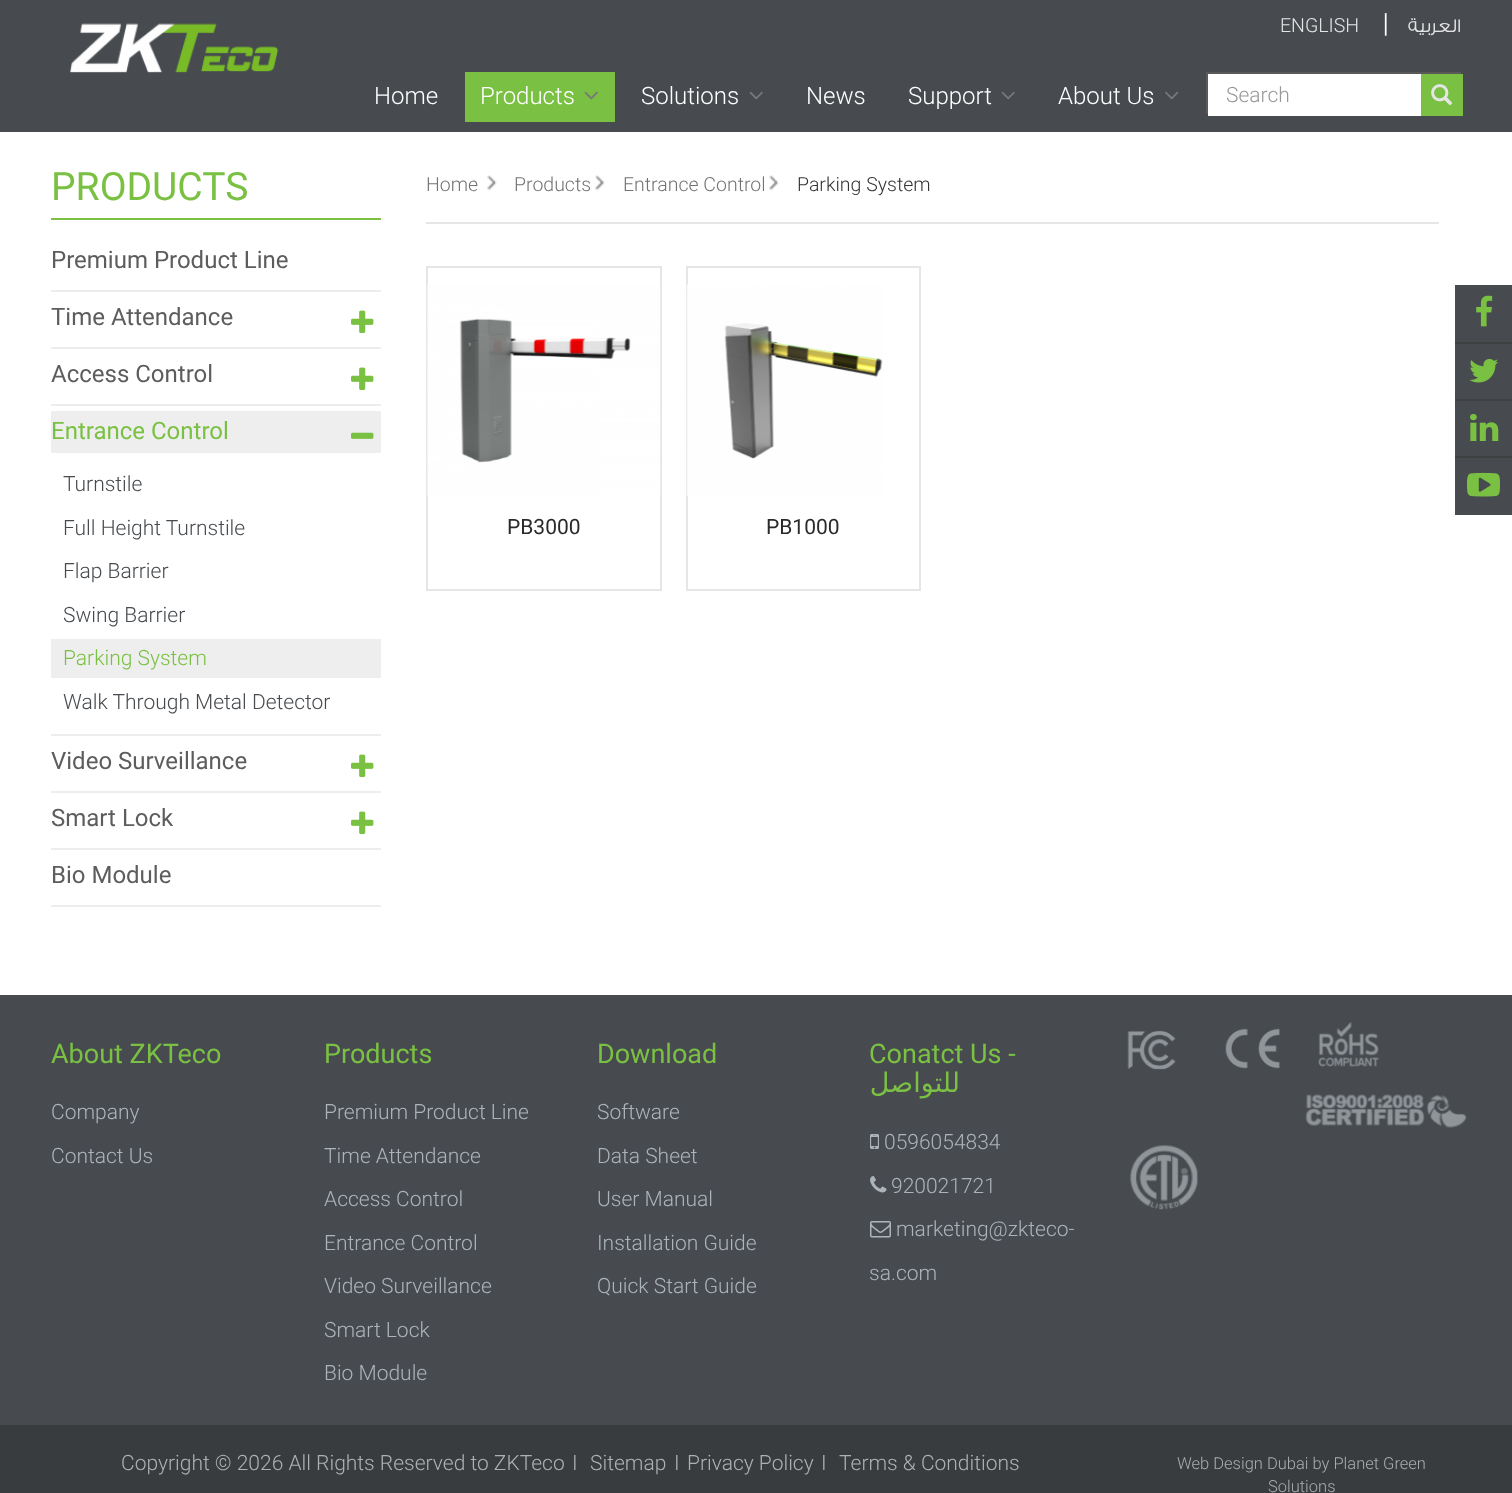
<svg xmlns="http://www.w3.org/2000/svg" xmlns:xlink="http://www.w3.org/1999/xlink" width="1512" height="1493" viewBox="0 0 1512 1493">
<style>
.cls-1{font:300 19.5px Roboto;fill:#e5e5e5}
.cls-2{font:300 26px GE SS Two;fill:#ffffff}
.cls-3{font:300 19.5px GE SS Two;direction:rtl;fill:#e5e5e5}
.cls-4{font:300 24px Roboto;fill:#ffffff}
.cls-5{font:300 21px Roboto;fill:#999999}
.cls-6{font:39px Roboto;fill:#7ac143}
.cls-7{font:24px Roboto;fill:#5d5d5d}
.cls-8{font:24px Roboto;fill:#7ac143}
.cls-9{font:300 21px Roboto;fill:#474b4f}
.cls-10{font:300 21px Roboto;fill:#7ac143}
.cls-11{font:300 19.5px Roboto;fill:#737373}
.cls-12{font:300 19.5px Roboto;fill:#333333}
.cls-13{font:21px Roboto;fill:#2b2a2a}
.cls-14{font:27px Roboto;fill:#7ac143}
.cls-15{font:300 21px Roboto;fill:#acb3bb}
.cls-16{font:27px DejaVu Sans;direction:rtl;fill:#7ac143}
.cls-17{font:300 21px Roboto;fill:#aeb1b3}
.cls-18{font:300 16.5px Roboto;fill:#acacac}
</style>
<rect width="100%" height="100%" fill="#ffffff"/>
<rect fill="#474b4f" x="0" y="0" width="1512" height="132"/>
<image xlink:href="image0.png" x="70" y="23" width="209" height="50"/>
<rect fill="#7ac143" x="465" y="72" width="150" height="50"/>
<image xlink:href="image1.png" x="584" y="91" width="14" height="9"/>
<image xlink:href="image2.png" x="749" y="91" width="14" height="9"/>
<image xlink:href="image2.png" x="1001" y="91" width="14" height="9"/>
<image xlink:href="image3.png" x="1165" y="91" width="14" height="9"/>
<rect fill="none" stroke="#595959" stroke-width="2" x="1207" y="73" width="253" height="40"/>
<rect fill="#ffffff" x="1208" y="74" width="213" height="42"/>
<rect fill="#7ac043" x="1421" y="74" width="42" height="42"/>
<image xlink:href="image4.png" x="1431" y="84" width="22" height="22"/>
<rect fill="#7ac143" x="51" y="218" width="330" height="2"/>
<rect fill="#ededed" x="51" y="290" width="330" height="2"/>
<rect fill="#ededed" x="51" y="347" width="330" height="2"/>
<image xlink:href="image5.png" x="351" y="310" width="23" height="23"/>
<rect fill="#ededed" x="51" y="404" width="330" height="2"/>
<image xlink:href="image5.png" x="351" y="367" width="23" height="23"/>
<rect fill="#ededed" x="51" y="734" width="330" height="2"/>
<rect fill="#eeeeee" x="51" y="411" width="330" height="42"/>
<image xlink:href="image6.png" x="351" y="432" width="23" height="7"/>
<rect fill="#eeeeee" x="51" y="639" width="330" height="39"/>
<rect fill="#ededed" x="51" y="791" width="330" height="2"/>
<image xlink:href="image5.png" x="351" y="754" width="23" height="23"/>
<rect fill="#ededed" x="51" y="848" width="330" height="2"/>
<image xlink:href="image5.png" x="351" y="811" width="23" height="23"/>
<rect fill="#ededed" x="51" y="905" width="330" height="2"/>
<image xlink:href="image7.png" x="487" y="175" width="10" height="16"/>
<image xlink:href="image7.png" x="595" y="175" width="10" height="16"/>
<image xlink:href="image7.png" x="769" y="175" width="10" height="16"/>
<rect fill="#e6e6e6" x="426" y="222" width="1013" height="2"/>
<rect fill="none" stroke="#e6e6e6" stroke-width="2" x="427" y="267" width="234" height="323"/>
<image xlink:href="image8.png" x="427" y="284" width="234" height="212"/>
<rect fill="none" stroke="#e6e6e6" stroke-width="2" x="687" y="267" width="233" height="323"/>
<image xlink:href="image9.png" x="686" y="284" width="197" height="212"/>
<rect fill="#474b4f" x="1455" y="285" width="57" height="57"/>
<image xlink:href="image10.png" x="1476" y="295" width="17" height="32"/>
<rect fill="#3e4041" x="1455" y="342" width="57" height="2"/>
<rect fill="#474b4f" x="1455" y="344" width="57" height="55"/>
<image xlink:href="image11.png" x="1469" y="358" width="30" height="25"/>
<rect fill="#3e4041" x="1455" y="399" width="57" height="2"/>
<rect fill="#474b4f" x="1455" y="401" width="57" height="55"/>
<image xlink:href="image12.png" x="1470" y="414" width="29" height="27"/>
<rect fill="#3e4041" x="1455" y="456" width="57" height="2"/>
<rect fill="#474b4f" x="1455" y="458" width="57" height="57"/>
<image xlink:href="image13.png" x="1467" y="472" width="33" height="25"/>
<rect fill="#474b4f" x="0" y="995" width="1512" height="430"/>
<image xlink:href="image14.png" x="870" y="1134" width="9" height="15"/>
<image xlink:href="image15.png" x="870" y="1176" width="17" height="17"/>
<image xlink:href="image16.png" x="870" y="1221" width="21" height="17"/>
<image xlink:href="image17.png" x="1127" y="1028" width="153" height="42"/>
<image xlink:href="image18.png" x="1318" y="1022" width="62" height="45"/>
<image xlink:href="image19.png" x="1305" y="1094" width="162" height="34"/>
<image xlink:href="image20.png" x="1130" y="1145" width="68" height="65"/>
<rect fill="#393c3f" x="0" y="1425" width="1512" height="68"/>
<text class="cls-1" x="1280" y="32">ENGLISH</text>
<text class="cls-2" x="1384" y="32">|</text>
<text class="cls-3" x="1461" y="32">العربية</text>
<text class="cls-4" x="374" y="104">Home</text>
<text class="cls-4" x="480" y="104">Products</text>
<text class="cls-4" x="641" y="104">Solutions</text>
<text class="cls-4" x="806" y="104">News</text>
<text class="cls-4" x="908" y="104">Support</text>
<text class="cls-4" x="1058" y="104">About Us</text>
<text class="cls-5" x="1226" y="102">Search</text>
<text class="cls-6" x="51" y="200">PRODUCTS</text>
<text class="cls-7" x="51" y="268">Premium Product Line</text>
<text class="cls-7" x="51" y="325">Time Attendance</text>
<text class="cls-7" x="51" y="382">Access Control</text>
<text class="cls-8" x="51" y="439">Entrance Control</text>
<text class="cls-9" x="63" y="491">Turnstile</text>
<text class="cls-9" x="63" y="535">Full Height Turnstile</text>
<text class="cls-9" x="63" y="578">Flap Barrier</text>
<text class="cls-9" x="63" y="622">Swing Barrier</text>
<text class="cls-10" x="63" y="665">Parking System</text>
<text class="cls-9" x="63" y="709">Walk Through Metal Detector</text>
<text class="cls-7" x="51" y="769">Video Surveillance</text>
<text class="cls-7" x="51" y="826">Smart Lock</text>
<text class="cls-7" x="51" y="883">Bio Module</text>
<text class="cls-11" x="426" y="191">Home</text>
<text class="cls-11" x="514" y="191">Products</text>
<text class="cls-11" x="623" y="191">Entrance Control</text>
<text class="cls-12" x="797" y="191">Parking System</text>
<text class="cls-13" x="507" y="534">PB3000</text>
<text class="cls-13" x="766" y="534">PB1000</text>
<text class="cls-14" x="51" y="1063">About ZKTeco</text>
<text class="cls-15" x="51" y="1119">Company</text>
<text class="cls-15" x="51" y="1163">Contact Us</text>
<text class="cls-14" x="324" y="1063">Products</text>
<text class="cls-15" x="324" y="1119">Premium Product Line</text>
<text class="cls-15" x="324" y="1163">Time Attendance</text>
<text class="cls-15" x="324" y="1206">Access Control</text>
<text class="cls-15" x="324" y="1250">Entrance Control</text>
<text class="cls-15" x="324" y="1293">Video Surveillance</text>
<text class="cls-15" x="324" y="1337">Smart Lock</text>
<text class="cls-15" x="324" y="1380">Bio Module</text>
<text class="cls-14" x="597" y="1063">Download</text>
<text class="cls-15" x="597" y="1119">Software</text>
<text class="cls-15" x="597" y="1163">Data Sheet</text>
<text class="cls-15" x="597" y="1206">User Manual</text>
<text class="cls-15" x="597" y="1250">Installation Guide</text>
<text class="cls-15" x="597" y="1293">Quick Start Guide</text>
<text class="cls-14" x="869" y="1063">Conatct Us -</text>
<text class="cls-16" x="960" y="1092">للتواصل</text>
<text class="cls-15" x="884" y="1149">0596054834</text>
<text class="cls-15" x="891" y="1193">920021721</text>
<text class="cls-15" x="896" y="1236">marketing@zkteco-</text>
<text class="cls-15" x="869" y="1280">sa.com</text>
<text class="cls-17" x="121" y="1470">Copyright © 2026 All Rights Reserved to ZKTeco</text>
<text class="cls-17" x="572" y="1470">I</text>
<text class="cls-17" x="590" y="1470">Sitemap</text>
<text class="cls-17" x="674" y="1470">I</text>
<text class="cls-17" x="687" y="1470">Privacy Policy</text>
<text class="cls-17" x="821" y="1470">I</text>
<text class="cls-17" x="839" y="1470">Terms &amp; Conditions</text>
<text class="cls-18" x="1177" y="1469">Web Design Dubai by Planet Green</text>
<text class="cls-18" x="1268" y="1492">Solutions</text>
</svg>
